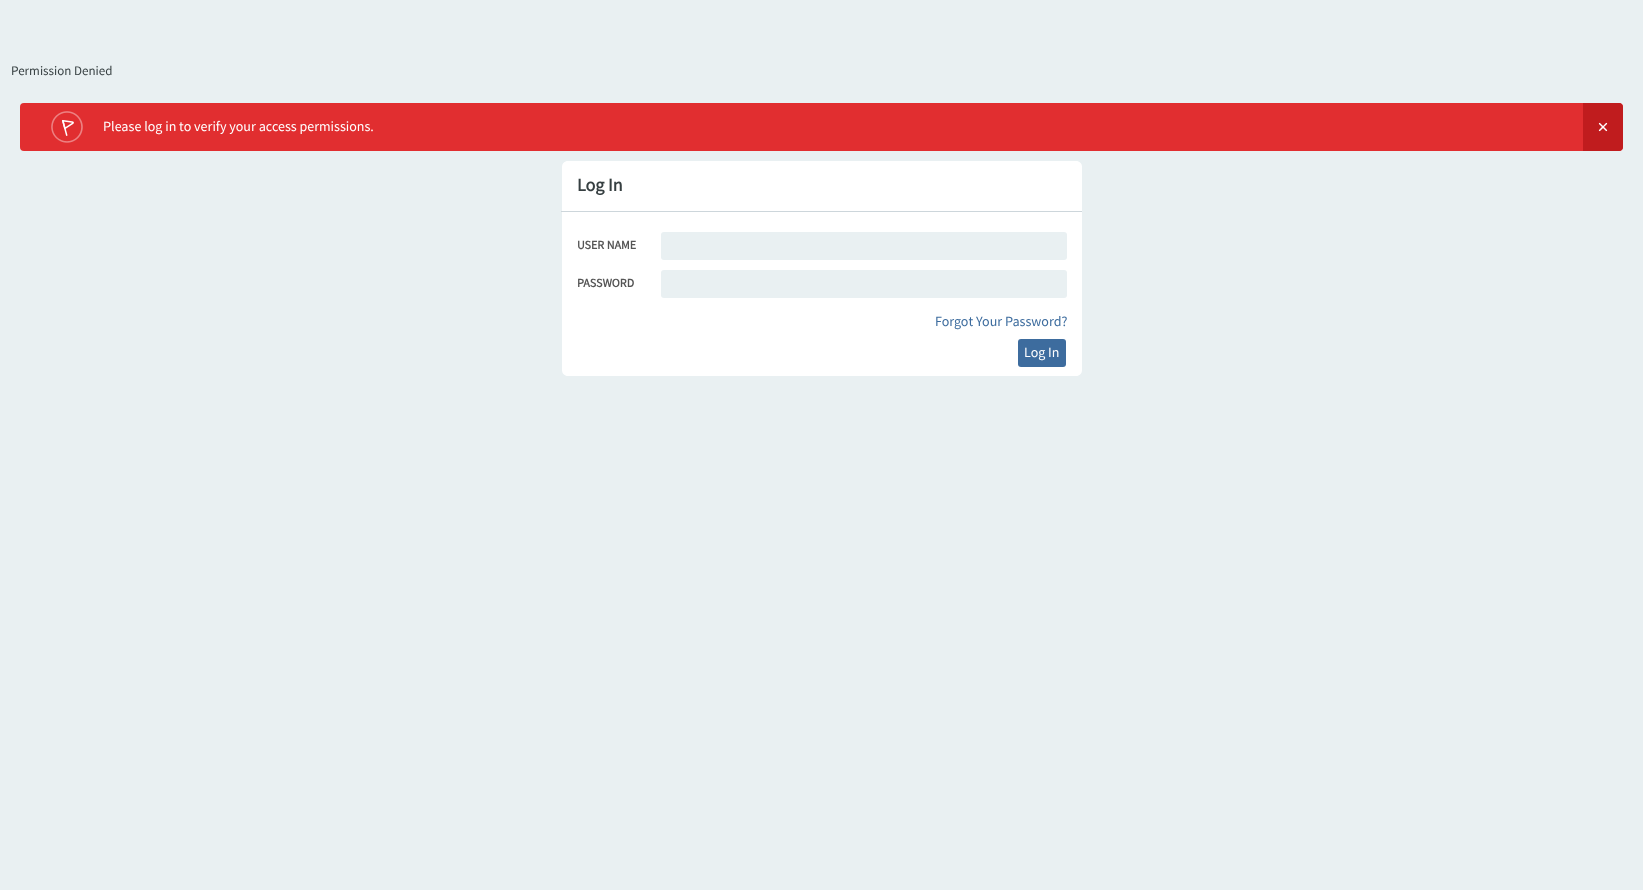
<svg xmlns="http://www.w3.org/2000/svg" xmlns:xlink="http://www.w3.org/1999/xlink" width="1643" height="890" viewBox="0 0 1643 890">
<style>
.cls-1{font:13px Source Sans Pro;fill:#363f41}
.cls-2{font:14px Source Sans Pro;fill:#ffffff}
.cls-3{font:bold 18px Source Sans Pro;fill:#363f41}
.cls-4{font:bold 12px Source Sans Pro;fill:#555555}
.cls-5{font:14px Source Sans Pro;fill:#3d6c9e}
</style>
<rect width="100%" height="100%" fill="#e9f0f2"/>
<rect fill="#e12e30" x="20" y="103" width="1603" height="48" rx="4"/>
<image xlink:href="image0.png" x="51" y="111" width="32" height="32"/>
<path fill="#c01c1e" d="M1583 103H1619C1621 103 1623 105 1623 107V147C1623 149 1621 151 1619 151H1583Z"/>
<image xlink:href="image1.png" x="1598" y="122" width="10" height="10"/>
<path fill="#ffffff" d="M568 161H1076C1079.5 161 1082 163.5 1082 167V212H562V167C562 163.5 564.5 161 568 161Z"/>
<rect fill="#cdd6db" x="561" y="211" width="521" height="1"/>
<rect fill="#ffffff" x="562" y="212" width="520" height="91"/>
<rect fill="#e9f0f2" x="661" y="232" width="406" height="28" rx="3"/>
<rect fill="#e9f0f2" x="661" y="270" width="406" height="28" rx="3"/>
<path fill="#ffffff" d="M562 303H1082V370C1082 373.5 1079.5 376 1076 376H568C564.5 376 562 373.5 562 370Z"/>
<rect fill="#3d6c9e" x="1018" y="339" width="48" height="28" rx="3"/>
<text class="cls-1" x="11" y="75">Permission Denied</text>
<text class="cls-2" x="103" y="131">Please log in to verify your access permissions.</text>
<text class="cls-3" x="577" y="191">Log In</text>
<text class="cls-4" x="577" y="249">USER NAME</text>
<text class="cls-4" x="577" y="287">PASSWORD</text>
<text class="cls-5" x="935" y="326">Forgot Your Password?</text>
<text class="cls-2" x="1024" y="357">Log In</text>
</svg>
